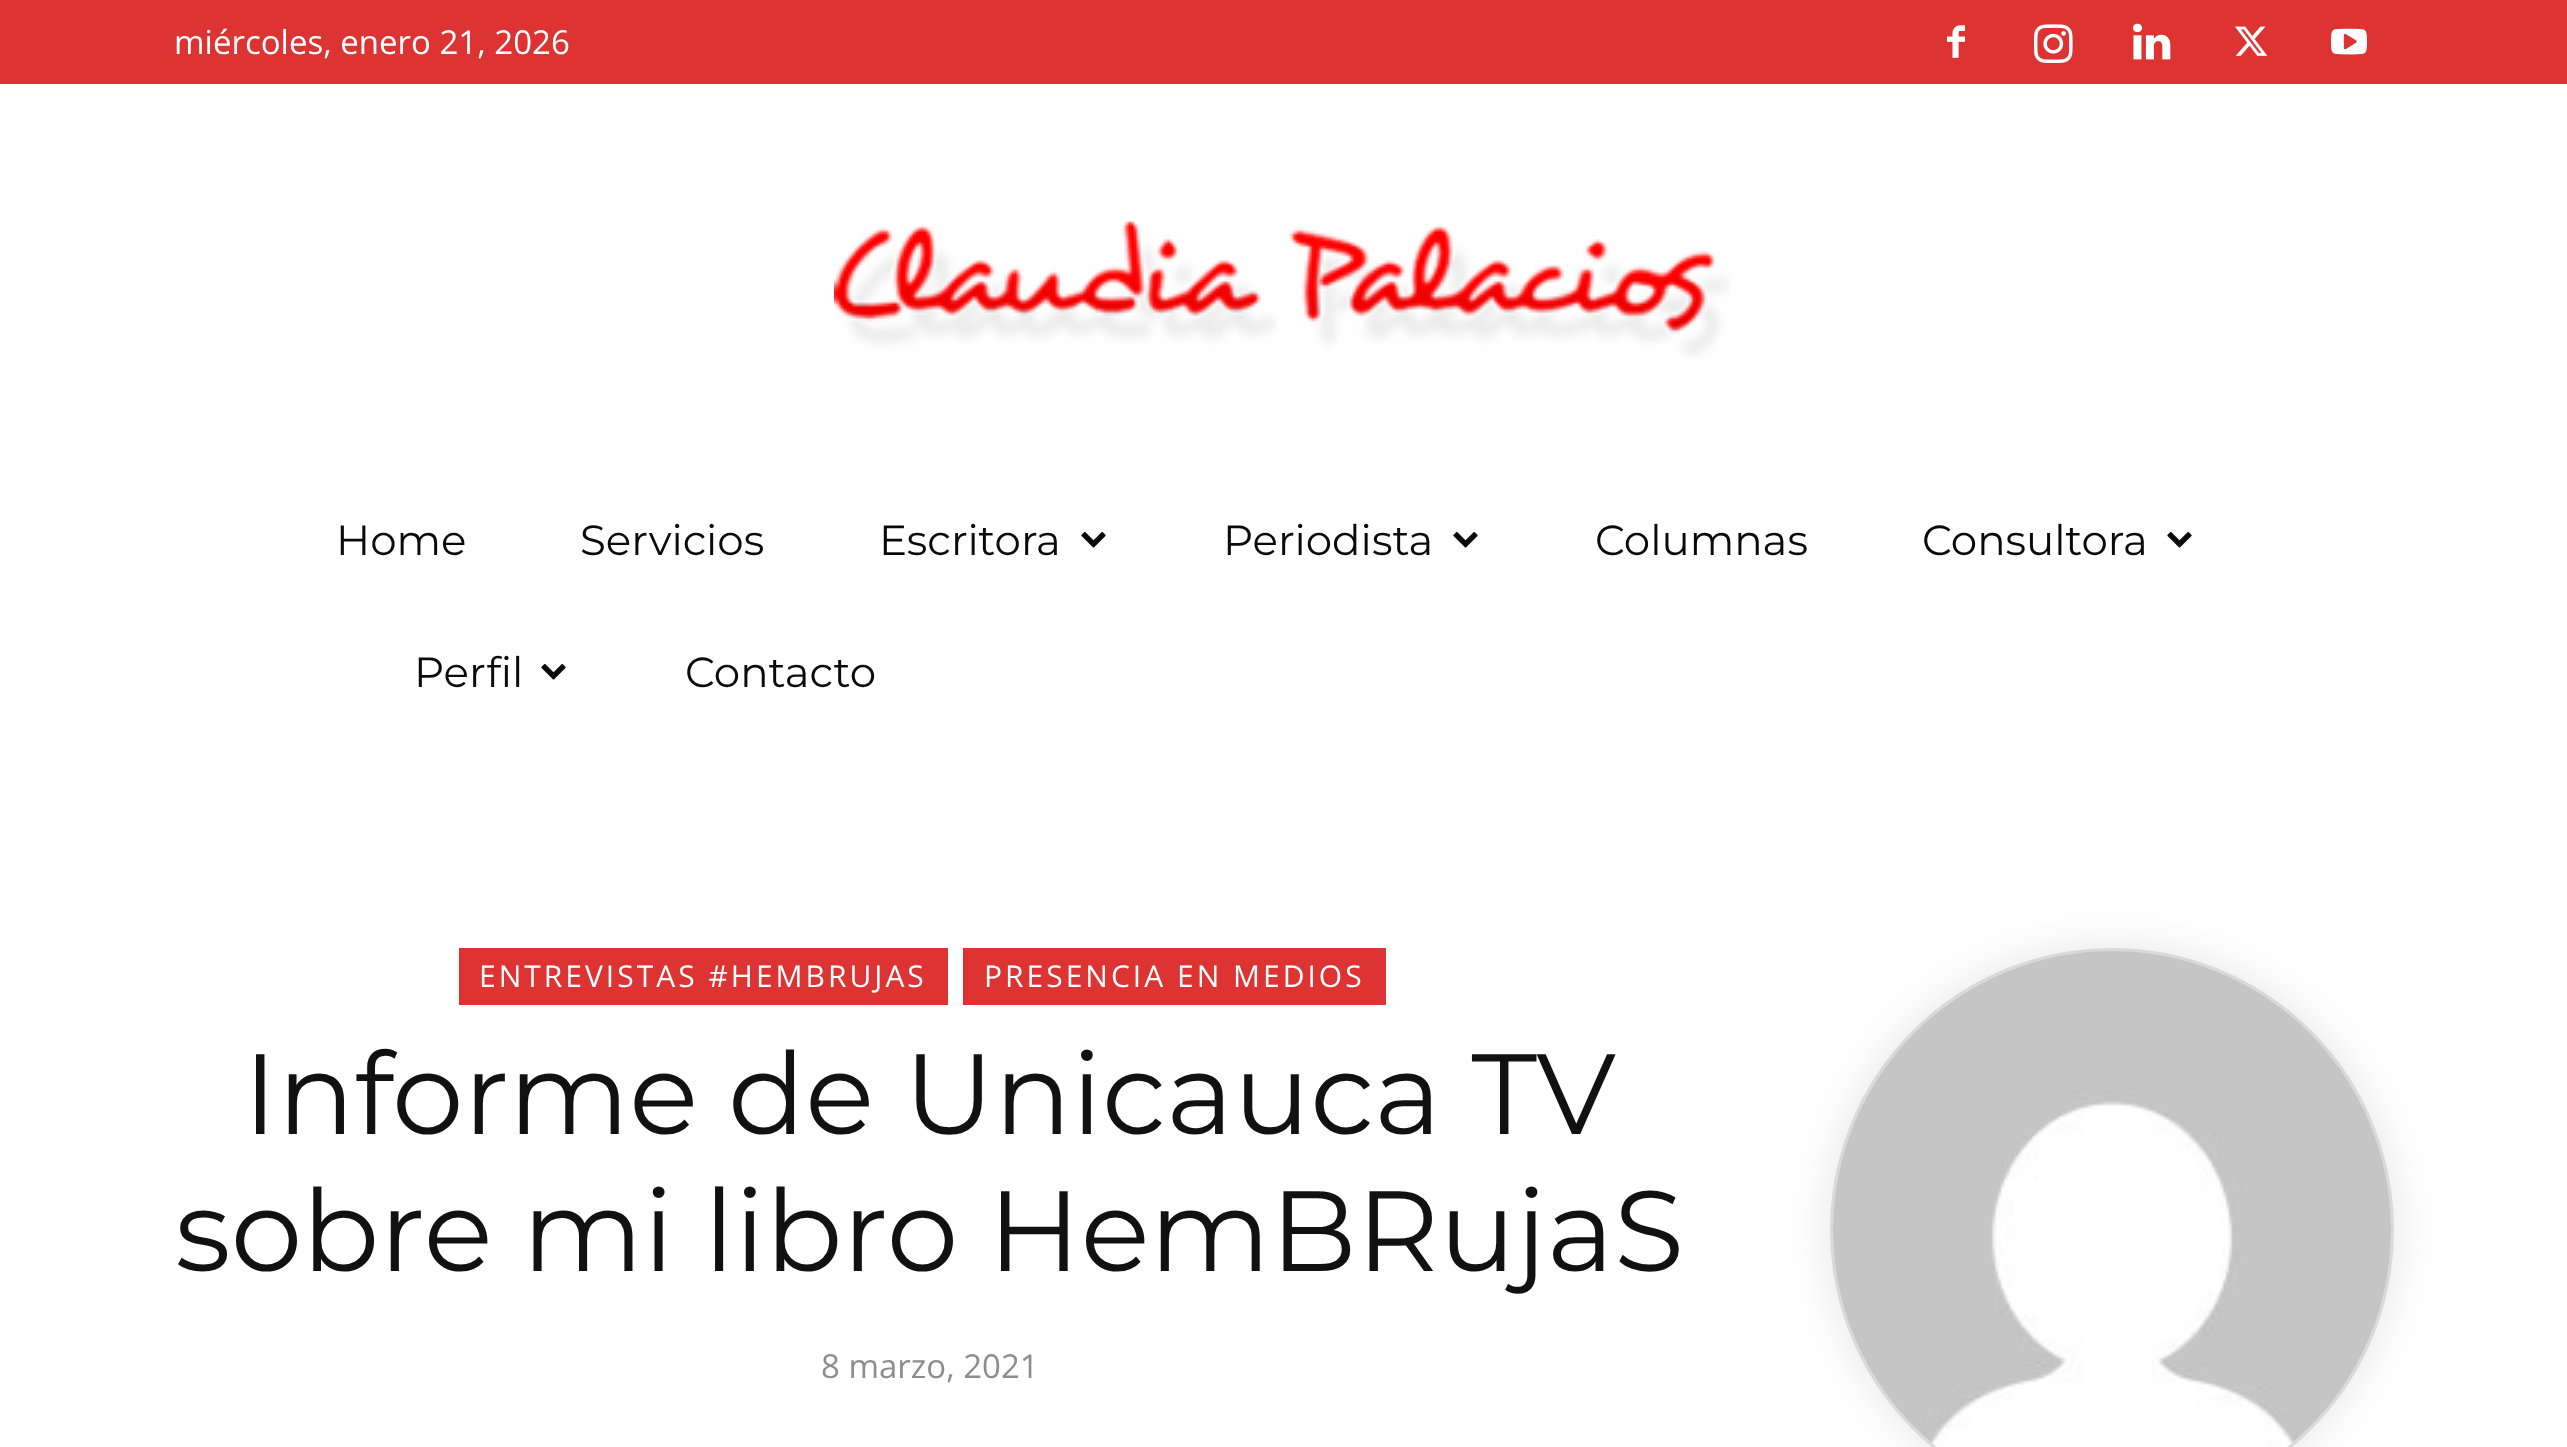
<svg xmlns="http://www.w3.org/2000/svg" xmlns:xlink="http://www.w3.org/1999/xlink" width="2567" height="1447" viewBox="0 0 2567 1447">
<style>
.cls-1{font:33px Open Sans;fill:#ffffff}
.cls-2{font:42px Montserrat;fill:#0a0a0a}
.cls-3{font:30px Open Sans;letter-spacing:3px;fill:#ffffff}
.cls-4{font:114px Montserrat;fill:#111111}
.cls-5{font:33px Open Sans;fill:#8e8e8e}
</style>
<rect width="100%" height="100%" fill="#ffffff"/>
<rect fill="#dd3333" x="0" y="0" width="2567" height="84"/>
<image xlink:href="image0.png" x="1947" y="25" width="18" height="33"/>
<image xlink:href="image1.png" x="2034" y="24" width="39" height="39"/>
<image xlink:href="image2.png" x="2133" y="23" width="38" height="37"/>
<image xlink:href="image3.png" x="2235" y="26" width="33" height="30"/>
<image xlink:href="image4.png" x="2331" y="28" width="36" height="27"/>
<image xlink:href="image5.png" x="834" y="221" width="897" height="137"/>
<image xlink:href="image6.png" x="1081" y="532" width="25" height="16"/>
<image xlink:href="image6.png" x="1453" y="532" width="25" height="16"/>
<image xlink:href="image6.png" x="2167" y="532" width="25" height="16"/>
<image xlink:href="image6.png" x="541" y="664" width="25" height="16"/>
<rect fill="#dd3333" x="459" y="948" width="489" height="57"/>
<rect fill="#dd3333" x="963" y="948" width="423" height="57"/>
<rect fill="#000000" fill-opacity="0.1" filter="blur(22.5px)" x="1830" y="948" width="564" height="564" rx="282"/>
<circle fill="none" stroke="#dad9d9" stroke-width="3" cx="2112" cy="1230" r="280.5"/>
<image xlink:href="image7.png" x="1833" y="951" width="558" height="496"/>
<text class="cls-1" x="174" y="54">miércoles, enero 21, 2026</text>
<text class="cls-2" x="336" y="555">Home</text>
<text class="cls-2" x="580" y="555">Servicios</text>
<text class="cls-2" x="879" y="555">Escritora</text>
<text class="cls-2" x="1223" y="555">Periodista</text>
<text class="cls-2" x="1595" y="555">Columnas</text>
<text class="cls-2" x="1922" y="555">Consultora</text>
<text class="cls-2" x="414" y="687">Perfil</text>
<text class="cls-2" x="685" y="687">Contacto</text>
<text class="cls-3" x="479" y="987">ENTREVISTAS #HEMBRUJAS</text>
<text class="cls-3" x="984" y="987">PRESENCIA EN MEDIOS</text>
<text class="cls-4" x="243" y="1134">Informe de Unicauca TV</text>
<text class="cls-4" x="175" y="1271">sobre mi libro HemBRujaS</text>
<text class="cls-5" x="821" y="1378">8 marzo, 2021</text>
</svg>
